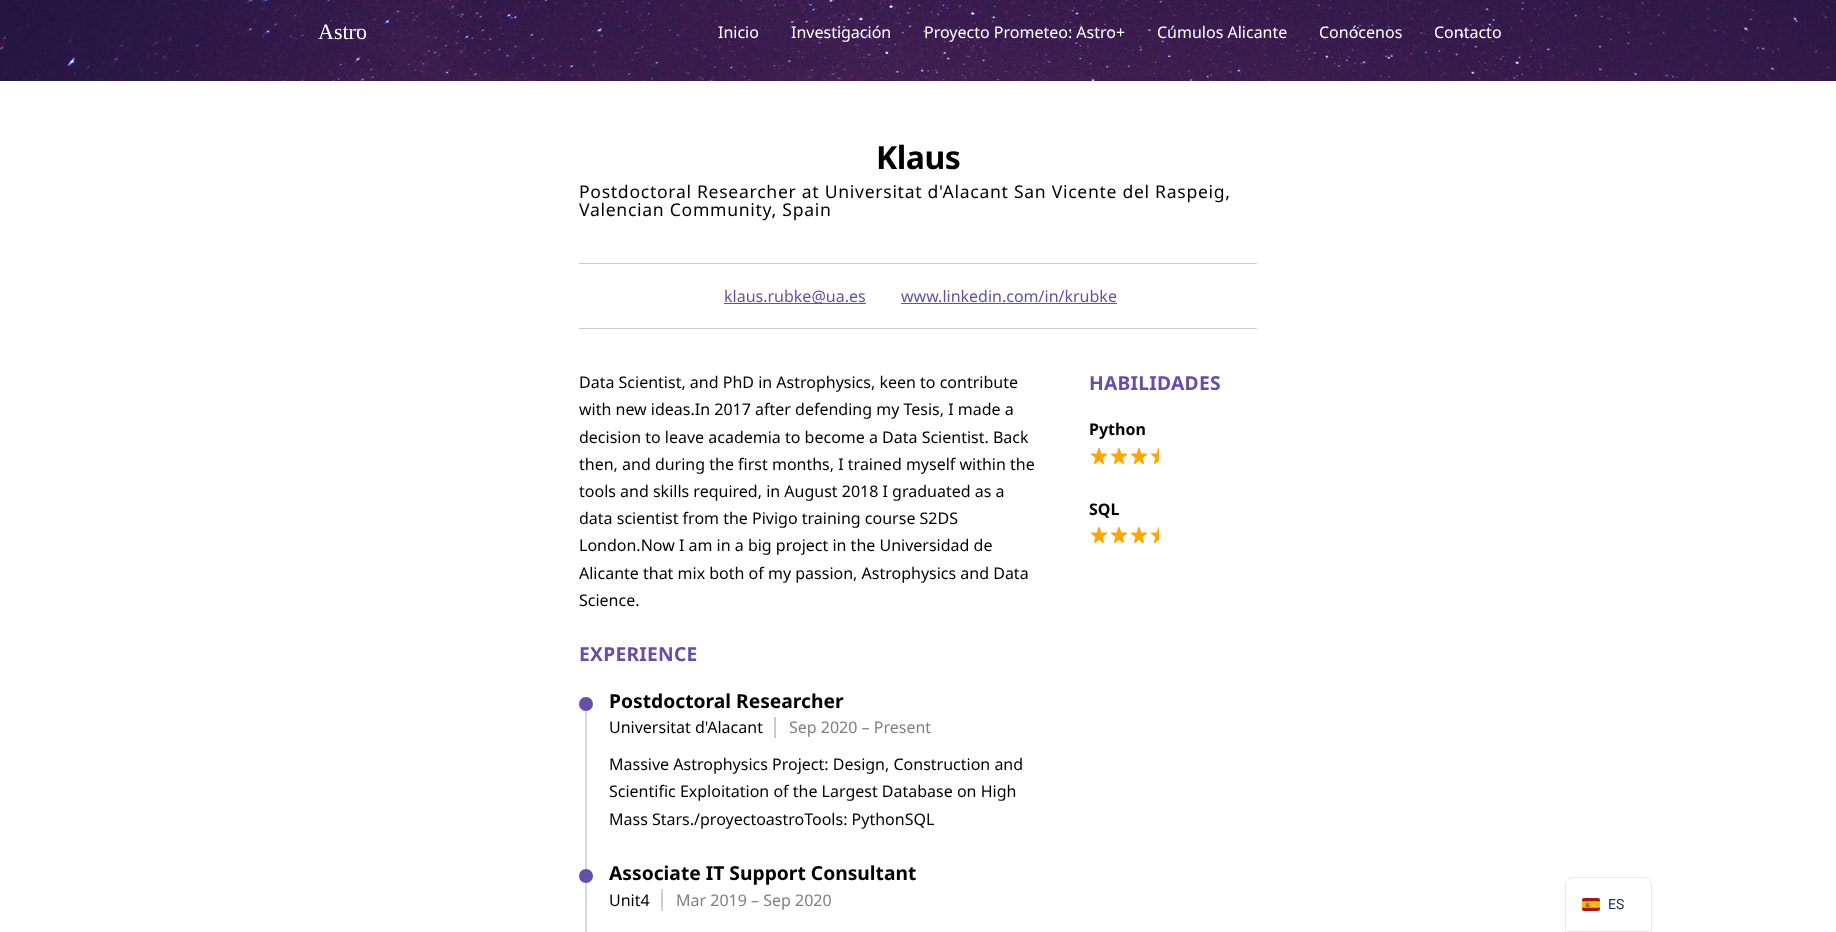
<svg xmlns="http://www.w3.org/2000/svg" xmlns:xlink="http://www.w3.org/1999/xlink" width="1836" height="932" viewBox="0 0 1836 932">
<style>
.cls-1{font:22px Liberation Serif;fill:#ffffff}
.cls-2{font:16px Noto Sans;fill:#ffffff}
.cls-3{font:bold 32px Noto Sans;letter-spacing:-0.5px;fill:#000000}
.cls-4{font:17.6px Noto Sans;letter-spacing:0.7px;fill:#000000}
.cls-5{font:16px Noto Sans;fill:#674ea7}
.cls-6{font:16px Noto Sans;fill:#000000}
.cls-7{font:bold 19.25px Noto Sans;letter-spacing:0.25px;fill:#674ea7}
.cls-8{font:bold 19.25px Noto Sans;fill:#000000}
.cls-9{font:16px Noto Sans;fill:#808080}
.cls-10{font:bold 16px Noto Sans;fill:#000000}
.cls-11{font:14px Roboto;fill:#143852}
</style>
<rect width="100%" height="100%" fill="#ffffff"/>
<image xlink:href="image0.png" x="0" y="0" width="1836" height="81"/>
<rect fill="#cccccc" x="579" y="263" width="678" height="1"/>
<rect fill="#cccccc" x="579" y="328" width="678" height="1"/>
<rect fill="#674ea7" x="724" y="303" width="142" height="1"/>
<rect fill="#674ea7" x="901" y="303" width="216" height="1"/>
<rect fill="#d9d9d9" x="585" y="697" width="2" height="235"/>
<circle fill="#674ea7" cx="586" cy="704" r="7"/>
<rect fill="#cccccc" x="774" y="717" width="2" height="21"/>
<circle fill="#674ea7" cx="586" cy="876" r="7"/>
<rect fill="#cccccc" x="661" y="889" width="2" height="22"/>
<image xlink:href="image1.png" x="1091" y="448" width="16" height="16"/>
<image xlink:href="image1.png" x="1111" y="448" width="16" height="16"/>
<image xlink:href="image1.png" x="1131" y="448" width="16" height="16"/>
<image xlink:href="image2.png" x="1151" y="448" width="8" height="16"/>
<image xlink:href="image1.png" x="1091" y="527" width="16" height="16"/>
<image xlink:href="image1.png" x="1111" y="527" width="16" height="16"/>
<image xlink:href="image1.png" x="1131" y="527" width="16" height="16"/>
<image xlink:href="image2.png" x="1151" y="527" width="8" height="16"/>
<path fill="none" stroke="#e7ebee" d="M1573 877.5H1644C1648 877.5 1651.5 881 1651.5 885V931.5H1565.5V885C1565.5 881 1569 877.5 1573 877.5Z"/>
<image xlink:href="image3.png" x="1582" y="898" width="18" height="13"/>
<text class="cls-1" x="318" y="39">Astro</text>
<text class="cls-2" x="718" y="38">Inicio</text>
<text class="cls-2" x="791" y="38">Investigación</text>
<text class="cls-2" x="924" y="38">Proyecto Prometeo: Astro+</text>
<text class="cls-2" x="1157" y="38">Cúmulos Alicante</text>
<text class="cls-2" x="1319" y="38">Conócenos</text>
<text class="cls-2" x="1434" y="38">Contacto</text>
<text class="cls-3" x="876" y="169">Klaus</text>
<text class="cls-4"><tspan x="579" y="198">Postdoctoral Researcher at Universitat d'Alacant San Vicente del Raspeig,</tspan><tspan x="579" y="216">Valencian Community, Spain</tspan></text>
<text class="cls-5" x="724" y="302">klaus.rubke@ua.es</text>
<text class="cls-5" x="901" y="302">www.linkedin.com/in/krubke</text>
<text class="cls-6"><tspan x="579" y="388">Data Scientist, and PhD in Astrophysics, keen to contribute</tspan><tspan x="579" y="415">with new ideas.In 2017 after defending my Tesis, I made a</tspan><tspan x="579" y="443">decision to leave academia to become a Data Scientist. Back</tspan><tspan x="579" y="470">then, and during the first months, I trained myself within the</tspan><tspan x="579" y="497">tools and skills required, in August 2018 I graduated as a</tspan><tspan x="579" y="524">data scientist from the Pivigo training course S2DS</tspan><tspan x="579" y="551">London.Now I am in a big project in the Universidad de</tspan><tspan x="579" y="579">Alicante that mix both of my passion, Astrophysics and Data</tspan><tspan x="579" y="606">Science.</tspan></text>
<text class="cls-7" x="579" y="661">EXPERIENCE</text>
<text class="cls-8" x="609" y="708">Postdoctoral Researcher</text>
<text class="cls-6" x="609" y="733">Universitat d'Alacant</text>
<text class="cls-9" x="789" y="733">Sep 2020 – Present</text>
<text class="cls-6"><tspan x="609" y="770">Massive Astrophysics Project: Design, Construction and</tspan><tspan x="609" y="797">Scientific Exploitation of the Largest Database on High</tspan><tspan x="609" y="825">Mass Stars./proyectoastroTools: PythonSQL</tspan></text>
<text class="cls-8" x="609" y="880">Associate IT Support Consultant</text>
<text class="cls-6" x="609" y="906">Unit4</text>
<text class="cls-9" x="676" y="906">Mar 2019 – Sep 2020</text>
<text class="cls-7" x="1089" y="390">HABILIDADES</text>
<text class="cls-10" x="1089" y="435">Python</text>
<text class="cls-10" x="1089" y="515">SQL</text>
<text class="cls-11" x="1608" y="909">ES</text>
</svg>
